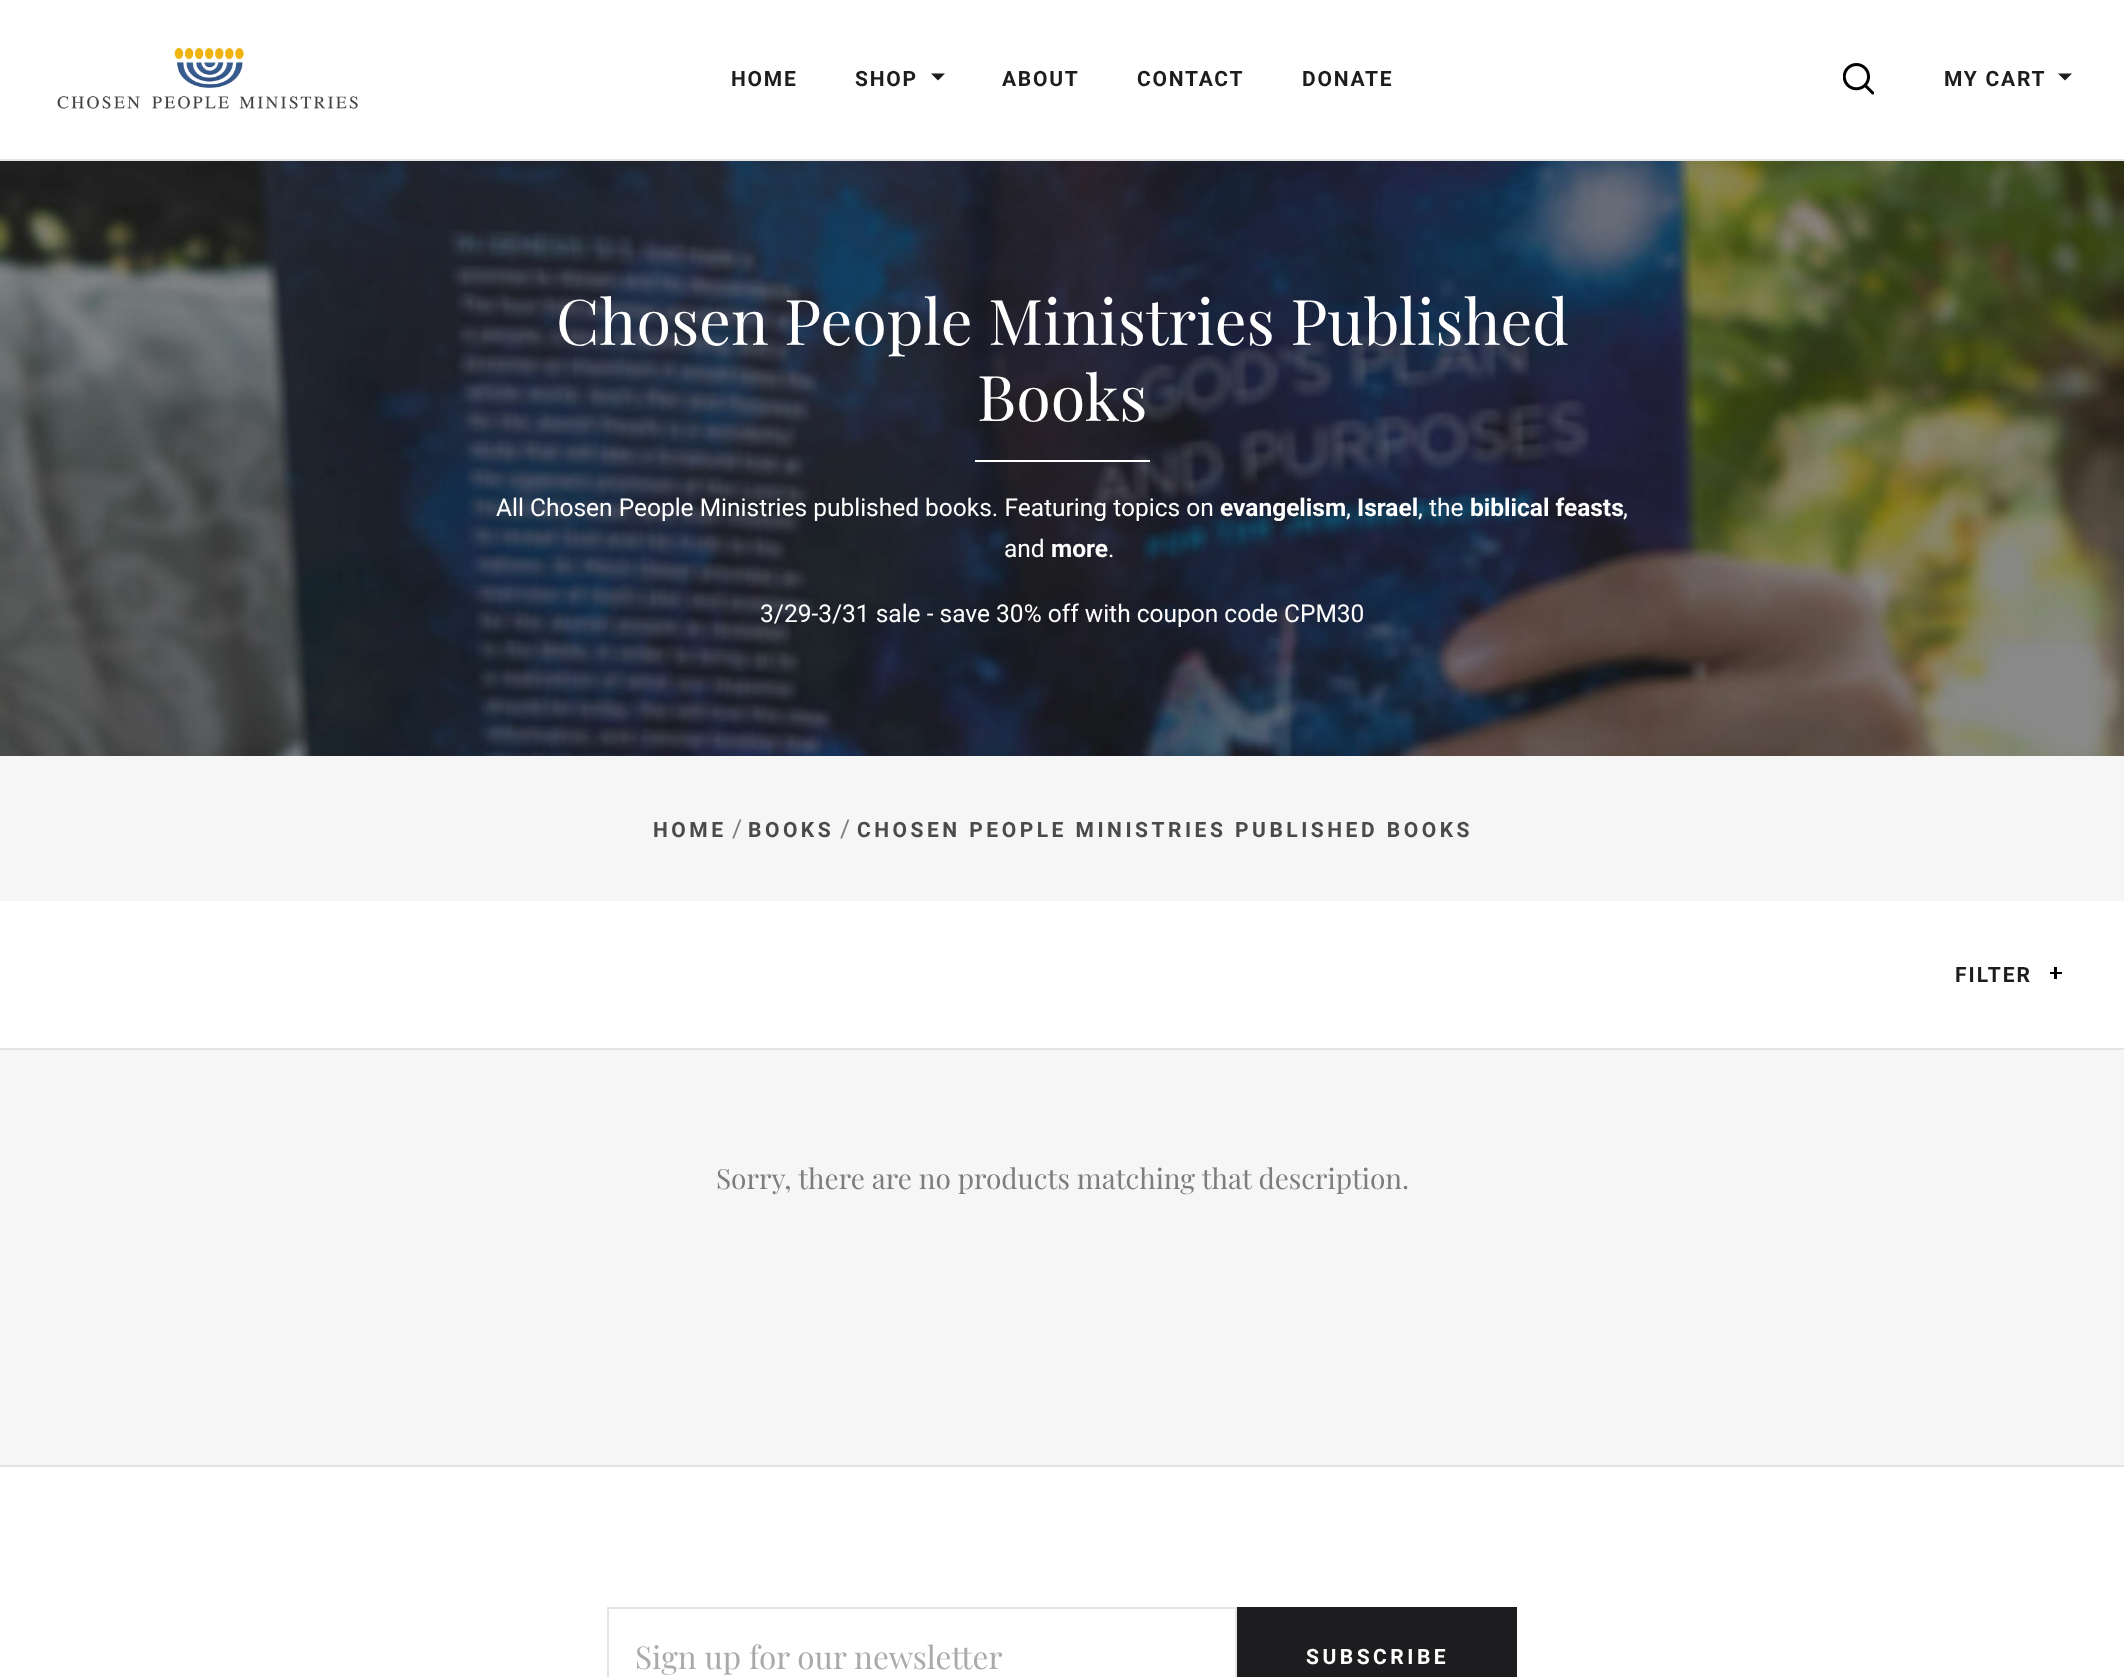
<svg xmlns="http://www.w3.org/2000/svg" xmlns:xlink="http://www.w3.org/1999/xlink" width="2124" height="1677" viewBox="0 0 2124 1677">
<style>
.cls-1{font:bold 21px Roboto;letter-spacing:1.75px;fill:#1d1d20}
.cls-2{font:63px Playfair Display;fill:#ffffff}
.cls-3{font:24.5px Roboto;fill:#ffffff}
.cls-4{font:bold 24.5px Roboto;fill:#ffffff}
.cls-5{font:bold 21px Roboto;letter-spacing:3.5px;fill:#4a4a4a}
.cls-6{font:24.5px Roboto;fill:#7d7d7d}
.cls-7{font:bold 21px Roboto;letter-spacing:2px;fill:#1d1d20}
.cls-8{font:28px Playfair Display;fill:#7d7d7d}
.cls-9{font:31.5px Playfair Display;fill:#aaaaaa}
.cls-10{font:bold 21px Roboto;letter-spacing:3.5px;fill:#ffffff}
</style>
<rect width="100%" height="100%" fill="#f6f6f6"/>
<rect fill="#ffffff" x="0" y="0" width="2124" height="159"/>
<rect fill="#e4e4e4" x="0" y="159" width="2124" height="2"/>
<image xlink:href="image0.png" x="57" y="47" width="301" height="62"/>
<path fill="#1d1d20" d="M931 73.5H945L938 80.5Z"/>
<image xlink:href="image1.png" x="1843" y="63" width="31" height="32"/>
<path fill="#1d1d20" d="M2058 73.5H2072L2065 80.5Z"/>
<image xlink:href="image2.png" x="0" y="161" width="2124" height="595"/>
<rect fill="#ffffff" x="975" y="460" width="175" height="2"/>
<rect fill="#ffffff" x="0" y="901" width="2124" height="147"/>
<rect fill="#e4e4e4" x="0" y="1048" width="2124" height="2"/>
<rect fill="#000000" x="2054" y="967" width="3" height="12"/>
<rect fill="#000000" x="2050" y="972" width="12" height="2"/>
<rect fill="#ffffff" x="0" y="1467" width="2124" height="210"/>
<rect fill="#e4e4e4" x="0" y="1465" width="2124" height="2"/>
<rect fill="none" stroke="#e4e4e4" stroke-width="2" x="608" y="1608" width="628" height="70"/>
<rect fill="#1d1d20" x="1237" y="1607" width="280" height="70"/>
<text class="cls-1" x="731" y="86">HOME</text>
<text class="cls-1" x="855" y="86">SHOP</text>
<text class="cls-1" x="1002" y="86">ABOUT</text>
<text class="cls-1" x="1137" y="86">CONTACT</text>
<text class="cls-1" x="1302" y="86">DONATE</text>
<text class="cls-1" x="1944" y="86">MY CART</text>
<text class="cls-2" x="556" y="345">Chosen People Ministries Published</text>
<text class="cls-2" x="977" y="421">Books</text>
<text class="cls-3" x="496" y="516">All Chosen People Ministries published books. Featuring topics on</text>
<text class="cls-4" x="1220" y="516">evangelism</text>
<text class="cls-3" x="1346" y="516">,</text>
<text class="cls-4" x="1357" y="516">Israel</text>
<text class="cls-3" x="1418" y="516">, the</text>
<text class="cls-4" x="1470" y="516">biblical feasts</text>
<text class="cls-3" x="1623" y="516">,</text>
<text class="cls-3" x="1004" y="557">and</text>
<text class="cls-4" x="1051" y="557">more</text>
<text class="cls-3" x="1108" y="557">.</text>
<text class="cls-3" x="760" y="622">3/29-3/31 sale - save 30% off with coupon code CPM30</text>
<text class="cls-5" x="653" y="837">HOME</text>
<text class="cls-6" x="732" y="837">/</text>
<text class="cls-5" x="748" y="837">BOOKS</text>
<text class="cls-6" x="840" y="837">/</text>
<text class="cls-5" x="857" y="837">CHOSEN PEOPLE MINISTRIES PUBLISHED BOOKS</text>
<text class="cls-7" x="1955" y="982">FILTER</text>
<text class="cls-8" x="716" y="1189">Sorry, there are no products matching that description.</text>
<text class="cls-9" x="635" y="1669">Sign up for our newsletter</text>
<text class="cls-10" x="1306" y="1664">SUBSCRIBE</text>
</svg>
